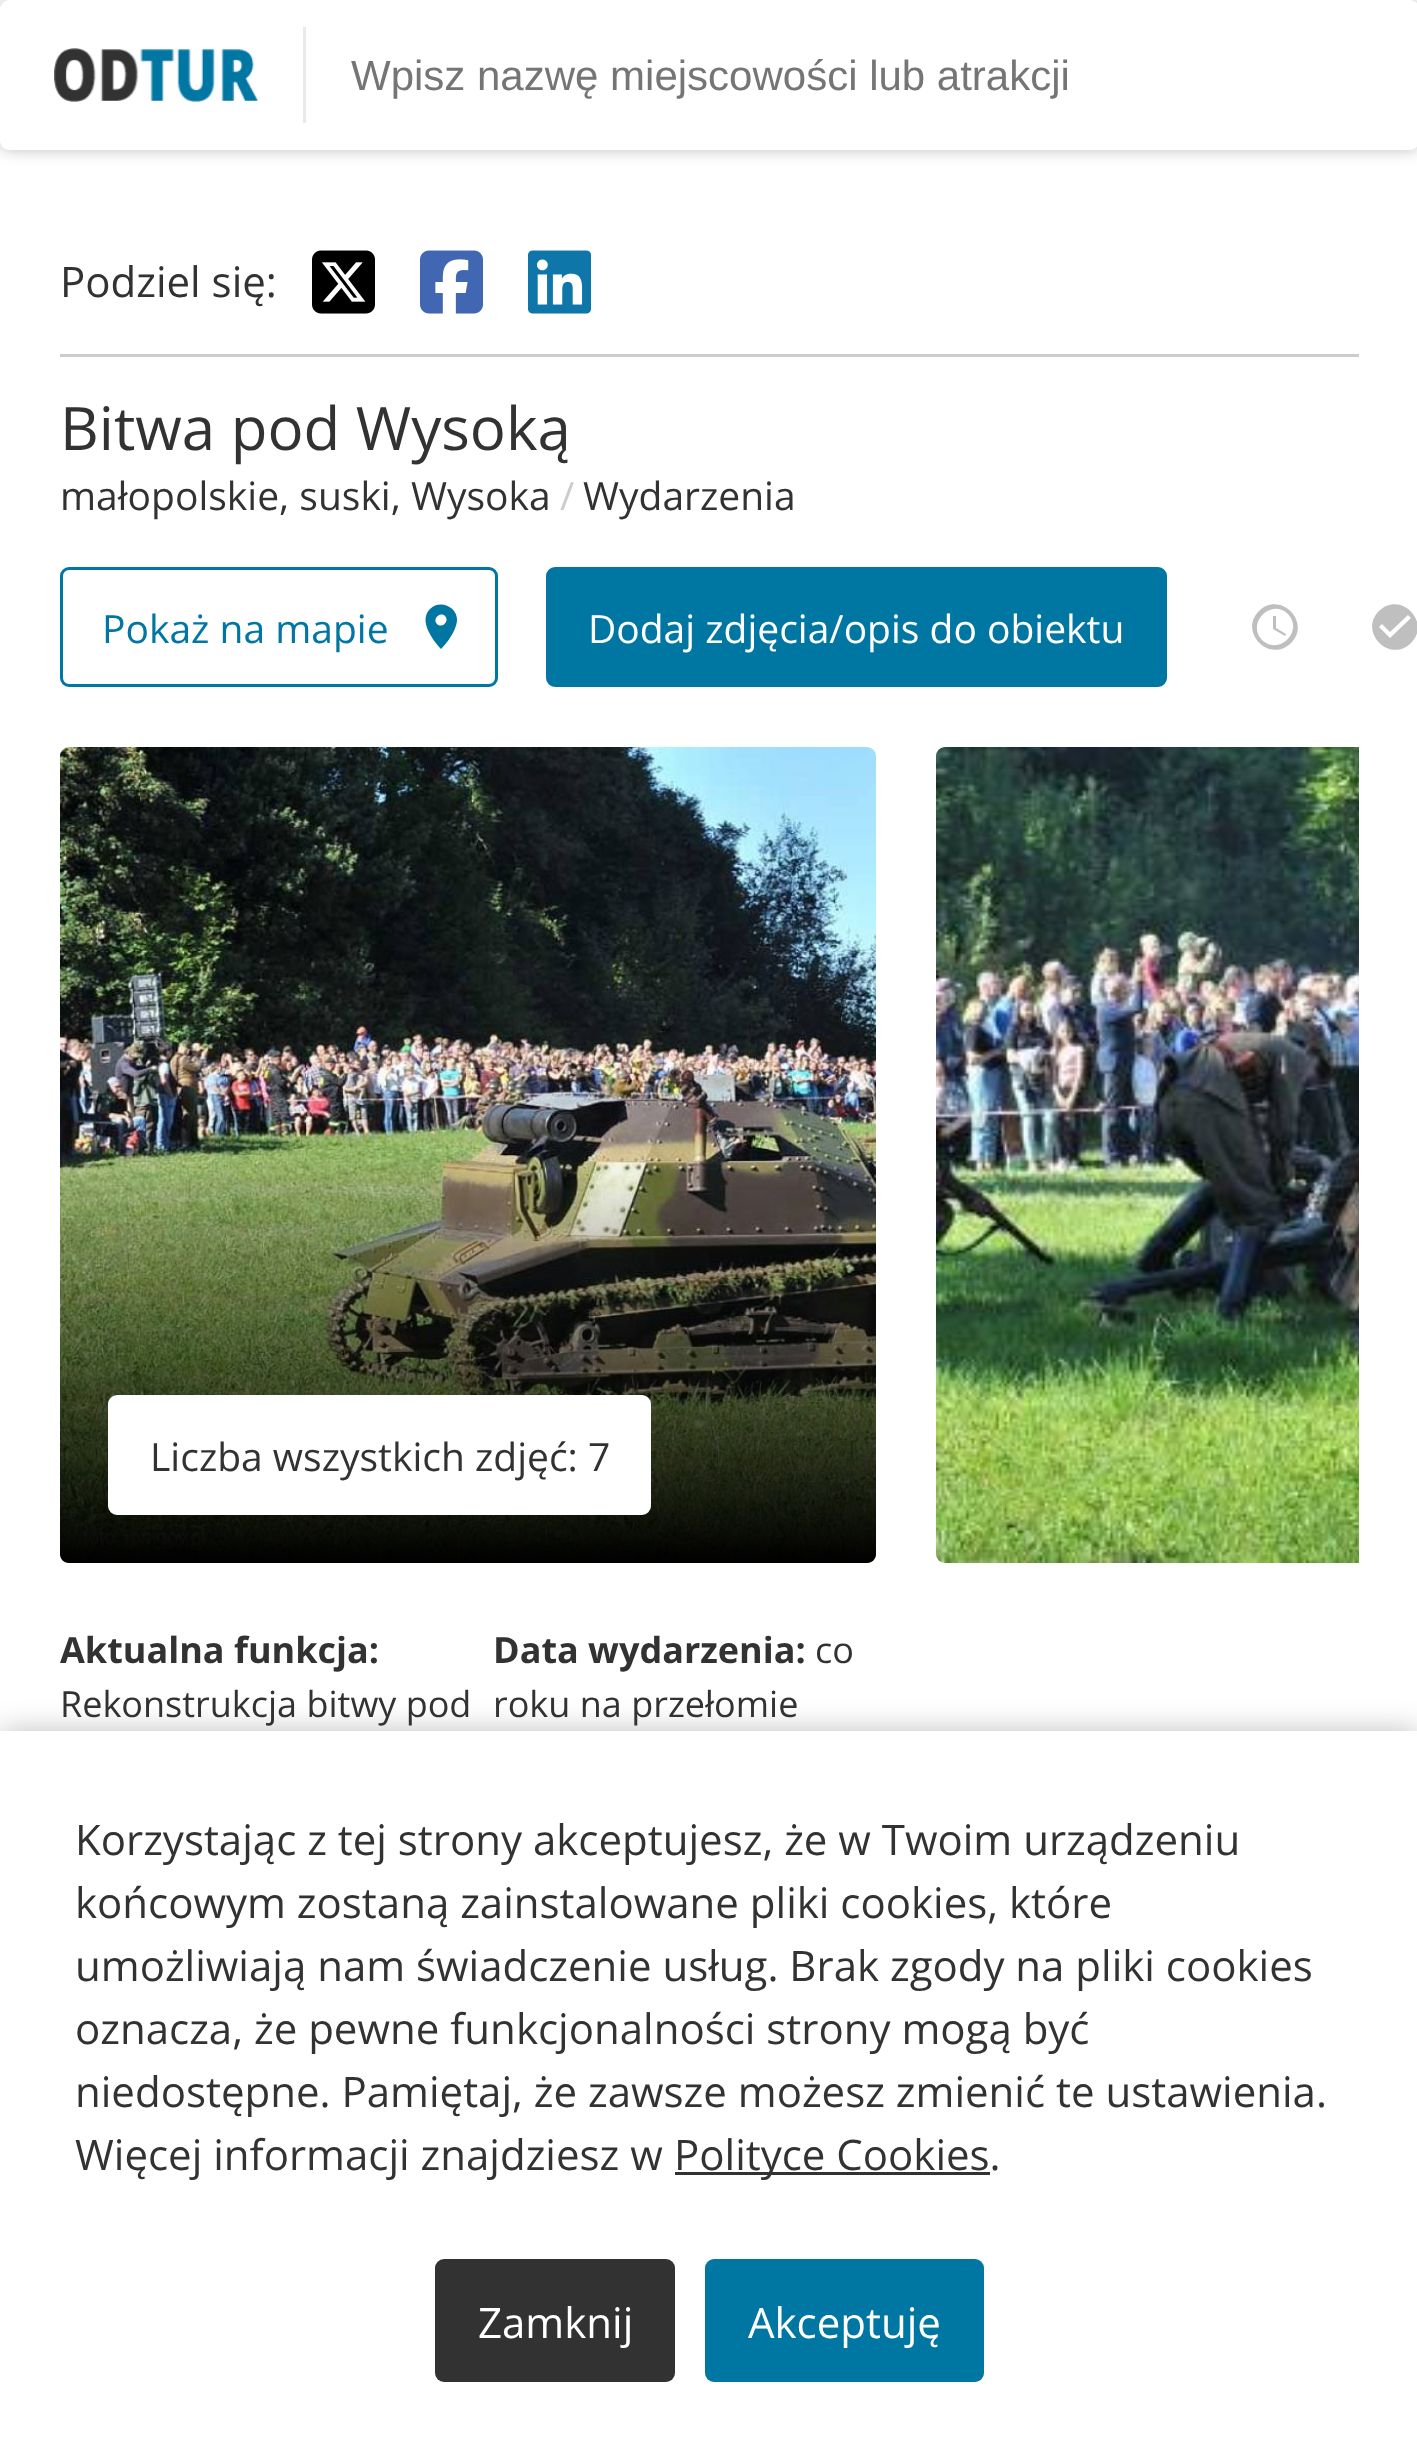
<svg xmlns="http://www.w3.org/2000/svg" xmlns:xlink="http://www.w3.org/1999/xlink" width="1417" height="2457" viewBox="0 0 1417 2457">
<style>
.cls-1{font:42px Liberation Sans;fill:#757575}
.cls-2{font:42px Open Sans;fill:#323232}
.cls-3{font:60px Open Sans;fill:#323232}
.cls-4{font:39px Open Sans;fill:#323232}
.cls-5{font:39px Open Sans;fill:#cccccc}
.cls-6{font:39px Open Sans;fill:#0076a3}
.cls-7{font:39px Open Sans;fill:#ffffff}
.cls-8{font:bold 36px Open Sans;fill:#323232}
.cls-9{font:36px Open Sans;fill:#323232}
.cls-10{font:42px Open Sans;fill:#ffffff}
</style>
<defs>
<linearGradient id="g1" gradientUnits="userSpaceOnUse" x1="468" y1="1563" x2="468" y2="1155"><stop offset="0" stop-color="#000000"/><stop offset="1" stop-color="#000000" stop-opacity="0"/></linearGradient>
</defs>
<rect width="100%" height="100%" fill="#ffffff"/>
<rect fill="#000000" fill-opacity="0.25" filter="blur(7.5px)" x="0" y="0" width="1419" height="150" rx="9"/>
<rect fill="#ffffff" x="0" y="0" width="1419" height="150" rx="9"/>
<image xlink:href="image0.png" x="54" y="48" width="204" height="54"/>
<rect fill="#eaeaea" x="303" y="27" width="3" height="96"/>
<rect fill="#cccccc" x="60" y="354" width="1299" height="3"/>
<image xlink:href="image1.png" x="312" y="250" width="63" height="64"/>
<image xlink:href="image2.png" x="420" y="250" width="63" height="64"/>
<image xlink:href="image3.png" x="528" y="250" width="63" height="64"/>
<rect fill="none" stroke="#0076a3" stroke-width="3" x="61.5" y="568.5" width="435" height="117" rx="7.5"/>
<path fill="#0076a3" d="M437 624C442 629 450 621 445 616C440 611 432 619 437 624ZM430 609C440 599 458 607 457 621C456 631 447 643 441 649C433 640 418 621 430 609Z"/>
<rect fill="#0076a3" stroke="#0076a3" stroke-width="3" x="547.5" y="568.5" width="618" height="117" rx="7.5"/>
<path fill="#bfbfbf" d="M1276 616V628L1286 634L1285 636L1273 629V616ZM1262 640C1279 656 1304 631 1288 614C1271 598 1246 623 1262 640ZM1259 611C1280 590 1312 622 1291 643C1270 664 1238 632 1259 611Z"/>
<path fill="#bfbfbf" d="M1390 638L1411 618L1408 615L1390 632L1382 624L1379 627ZM1379 611C1400 590 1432 622 1411 643C1390 664 1358 632 1379 611Z"/>
<image xlink:href="image4.png" x="60" y="747" width="816" height="816"/>
<path fill="url(#g1)" d="M60 1155H876V1554C876 1559 872 1563 867 1563H69C64 1563 60 1559 60 1554Z"/>
<rect fill="#ffffff" stroke="#ffffff" stroke-width="3" x="109.5" y="1396.5" width="540" height="117" rx="7.5"/>
<image xlink:href="image5.png" x="936" y="747" width="423" height="816"/>
<rect fill="#000000" fill-opacity="0.25" filter="blur(15px)" x="0" y="1731" width="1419" height="726"/>
<rect fill="#ffffff" x="0" y="1731" width="1417" height="726"/>
<rect fill="#323232" x="675" y="2172" width="315" height="3"/>
<rect fill="#323232" x="435" y="2259" width="240" height="123" rx="9"/>
<rect fill="#0076a3" x="705" y="2259" width="279" height="123" rx="9"/>
<text class="cls-1" x="351" y="90">Wpisz nazwę miejscowości lub atrakcji</text>
<text class="cls-2" x="60" y="297">Podziel się:</text>
<text class="cls-3" x="60" y="450">Bitwa pod Wysoką</text>
<text class="cls-4" x="60" y="510">małopolskie, suski, Wysoka</text>
<text class="cls-5" x="560" y="510">/</text>
<text class="cls-4" x="583" y="510">Wydarzenia</text>
<text class="cls-6" x="102" y="643">Pokaż na mapie</text>
<text class="cls-7" x="588" y="643">Dodaj zdjęcia/opis do obiektu</text>
<text class="cls-4" x="150" y="1471">Liczba wszystkich zdjęć: 7</text>
<text class="cls-8" x="60" y="1663">Aktualna funkcja:</text>
<text class="cls-9" x="60" y="1717">Rekonstrukcja bitwy pod</text>
<text class="cls-8" x="493" y="1663">Data wydarzenia:</text>
<text class="cls-9" x="815" y="1663">co</text>
<text class="cls-9" x="493" y="1717">roku na przełomie</text>
<text class="cls-2"><tspan x="75" y="1855">Korzystając z tej strony akceptujesz, że w Twoim urządzeniu</tspan><tspan x="75" y="1918">końcowym zostaną zainstalowane pliki cookies, które</tspan><tspan x="75" y="1981">umożliwiają nam świadczenie usług. Brak zgody na pliki cookies</tspan><tspan x="75" y="2044">oznacza, że pewne funkcjonalności strony mogą być</tspan><tspan x="75" y="2107">niedostępne. Pamiętaj, że zawsze możesz zmienić te ustawienia.</tspan><tspan x="75" y="2170">Więcej informacji znajdziesz w</tspan></text>
<text class="cls-2" x="674" y="2170">Polityce Cookies.</text>
<text class="cls-10" x="478" y="2338">Zamknij</text>
<text class="cls-10" x="748" y="2338">Akceptuję</text>
</svg>
